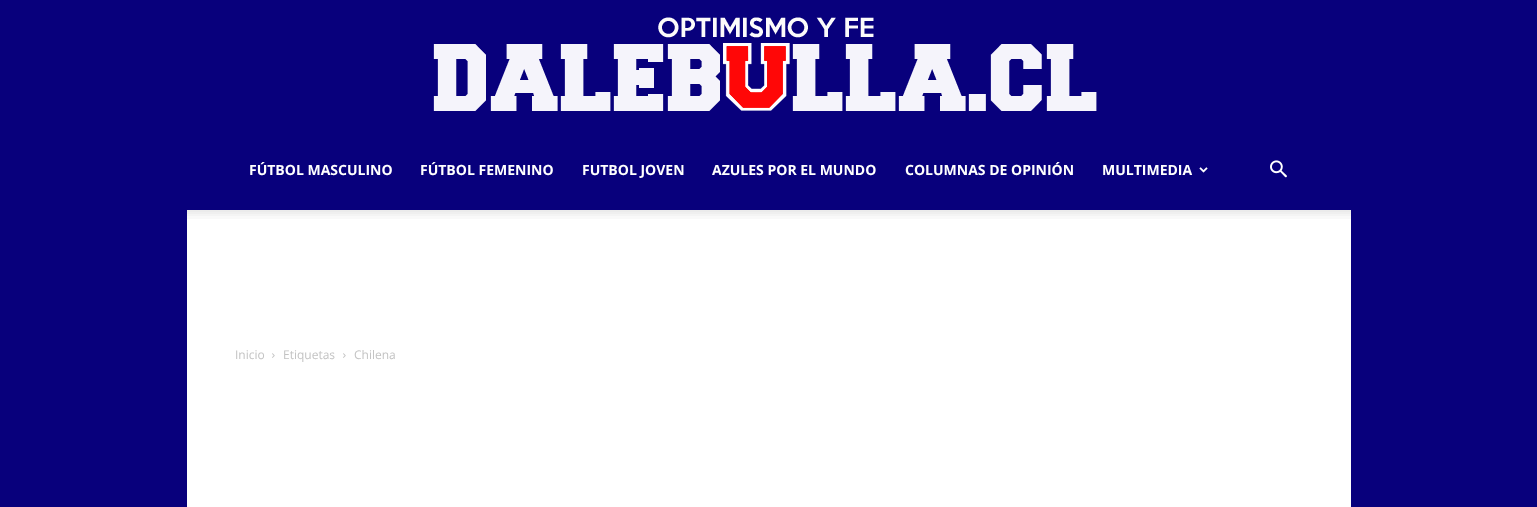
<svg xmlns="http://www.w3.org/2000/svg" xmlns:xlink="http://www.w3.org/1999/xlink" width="1537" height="507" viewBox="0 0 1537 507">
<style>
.cls-1{font:bold 14px Open Sans;fill:#ffffff}
.cls-2{font:12px Open Sans;fill:#c3c3c3}
</style>
<rect width="100%" height="100%" fill="#08007c"/>
<image xlink:href="image0.png" x="433" y="17" width="664" height="94"/>
<image xlink:href="image1.png" x="1199" y="167" width="9" height="6"/>
<image xlink:href="image2.png" x="1270" y="160" width="17" height="18"/>
<rect fill="#ffffff" x="187" y="210" width="1164" height="297"/>
<image xlink:href="image3.png" x="187" y="210" width="1164" height="9"/>
<image xlink:href="image4.png" x="272" y="353" width="3" height="5"/>
<image xlink:href="image4.png" x="343" y="353" width="3" height="5"/>
<text class="cls-1" x="249" y="175">FÚTBOL MASCULINO</text>
<text class="cls-1" x="420" y="175">FÚTBOL FEMENINO</text>
<text class="cls-1" x="582" y="175">FUTBOL JOVEN</text>
<text class="cls-1" x="712" y="175">AZULES POR EL MUNDO</text>
<text class="cls-1" x="905" y="175">COLUMNAS DE OPINIÓN</text>
<text class="cls-1" x="1102" y="175">MULTIMEDIA</text>
<text class="cls-2" x="235" y="359">Inicio</text>
<text class="cls-2" x="283" y="359">Etiquetas</text>
<text class="cls-2" x="354" y="359">Chilena</text>
</svg>
